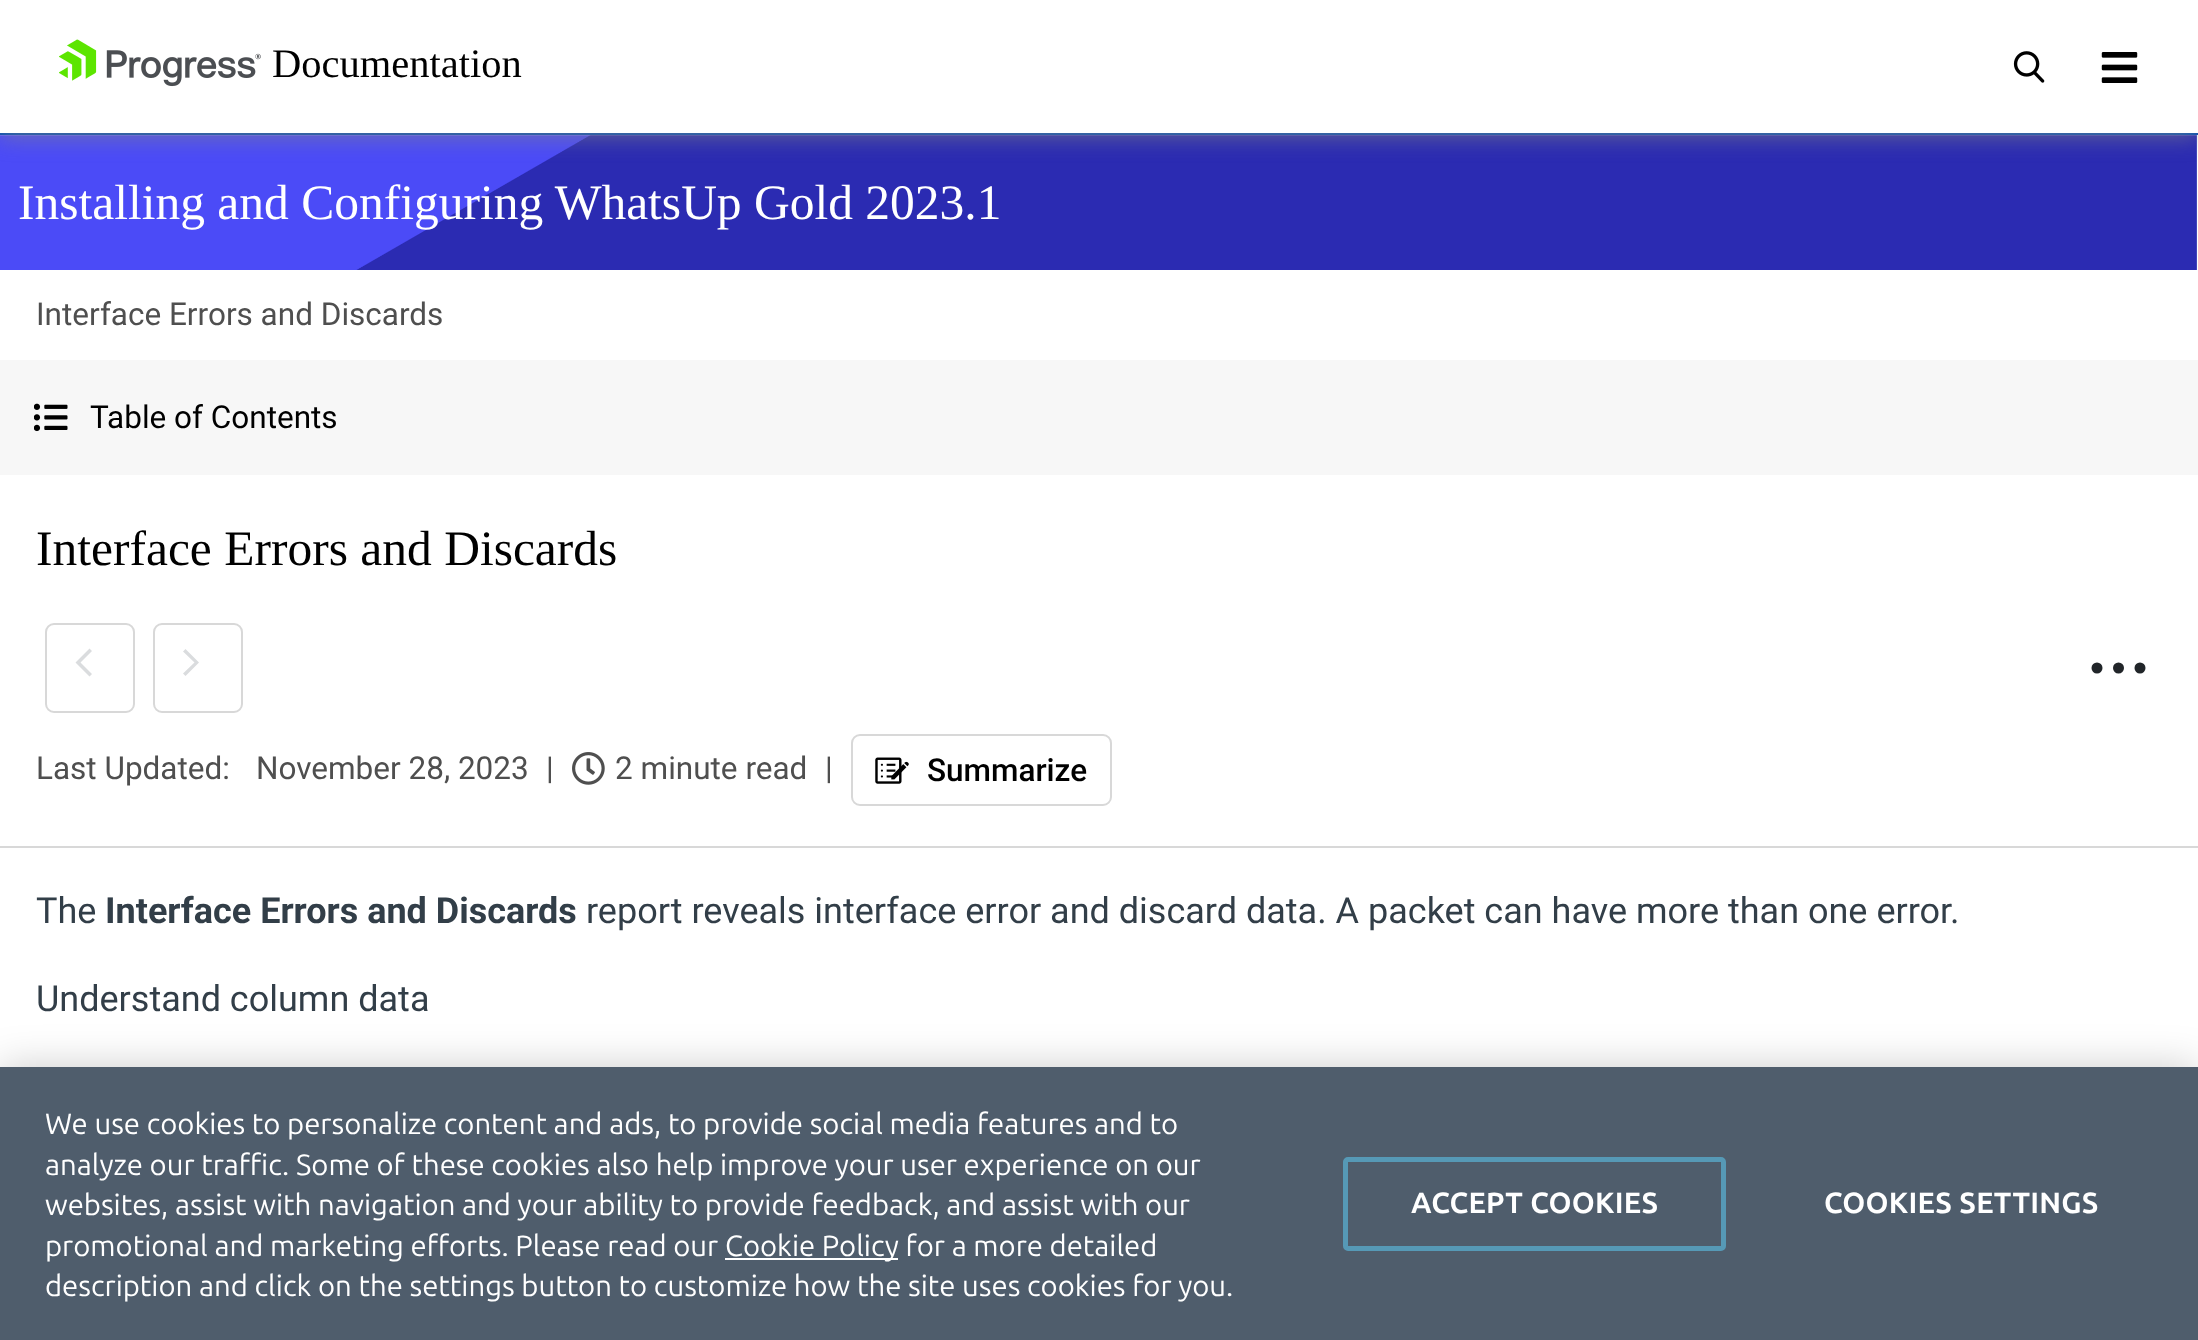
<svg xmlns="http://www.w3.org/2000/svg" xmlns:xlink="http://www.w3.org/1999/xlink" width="2198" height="1340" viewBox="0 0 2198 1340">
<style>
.cls-1{font:40.5px Liberation Serif;fill:#000000}
.cls-2{font:49.5px Liberation Serif;fill:#ffffff}
.cls-3{font:31.5px Roboto;fill:#4f4f4f}
.cls-4{font:31.5px Roboto;fill:#000000}
.cls-5{font:49.5px Liberation Serif;fill:#000000}
.cls-6{font:500 31.5px Roboto;fill:#000000}
.cls-7{font:36px Roboto;fill:#323e48}
.cls-8{font:bold 36px Roboto;fill:#323e48}
.cls-9{font:29.25px Ubuntu;fill:#ffffff}
.cls-10{font:bold 29.25px Ubuntu;letter-spacing:0.25px;fill:#ffffff}
</style>
<defs>
<clipPath id="clip1"><path d="M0 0H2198V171H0ZM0 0H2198V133H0Z" clip-rule="evenodd"/></clipPath>
</defs>
<rect width="100%" height="100%" fill="#ffffff"/>
<rect fill="#024db5" x="0" y="133" width="2198" height="2"/>
<image xlink:href="image3.png" x="0" y="135" width="2197" height="135"/>
<g clip-path="url(#clip1)">
<rect fill="#838486" fill-opacity="0.62" filter="blur(11px)" x="0" y="5" width="2198" height="132"/>
</g>
<image xlink:href="image0.png" x="59" y="39" width="202" height="48"/>
<image xlink:href="image1.png" x="2013" y="51" width="32" height="32"/>
<image xlink:href="image2.png" x="2101" y="52" width="37" height="31"/>
<rect fill="#f7f7f7" x="0" y="360" width="2198" height="115"/>
<image xlink:href="image4.png" x="34" y="403" width="34" height="29"/>
<rect fill="#d8d8d8" x="0" y="846" width="2198" height="2"/>
<rect fill="none" stroke="#d8d8d8" stroke-width="2" x="46" y="624" width="88" height="88" rx="8"/>
<path fill="#dadcde" d="M92 651L89.5 648.5L75.5 662.5L89.5 676.5L92 674L80.5 662.5Z"/>
<rect fill="none" stroke="#d8d8d8" stroke-width="2" x="154" y="624" width="88" height="88" rx="8"/>
<path fill="#dadcde" d="M183 673.5L185.5 676L199 662.5L185.5 649L183 651.5L194.5 662.5Z"/>
<circle fill="#212529" cx="2097" cy="668" r="5.5"/>
<circle fill="#212529" cx="2118.5" cy="668" r="5.5"/>
<circle fill="#212529" cx="2140" cy="668" r="5.5"/>
<image xlink:href="image5.png" x="572" y="752" width="33" height="33"/>
<rect fill="none" stroke="#d8d8d8" stroke-width="2" x="852" y="735" width="259" height="70" rx="8"/>
<image xlink:href="image6.png" x="875" y="757" width="34" height="27"/>
<rect fill="#000000" fill-opacity="0.2" filter="blur(20px)" x="0" y="1067" width="2198" height="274"/>
<rect fill="#4f5d6c" x="0" y="1067" width="2198" height="273"/>
<rect fill="#ffffff" x="725" y="1258" width="173" height="2"/>
<rect fill="none" stroke="#5699b6" stroke-width="5" x="1345.5" y="1159.5" width="378" height="89" rx="2.5"/>
<text class="cls-1" x="272" y="77">Documentation</text>
<text class="cls-2" x="18" y="219">Installing and Configuring WhatsUp Gold 2023.1</text>
<text class="cls-3" x="36" y="325">Interface Errors and Discards</text>
<text class="cls-4" x="90" y="428">Table of Contents</text>
<text class="cls-5" x="36" y="565">Interface Errors and Discards</text>
<text class="cls-3" x="36" y="779">Last Updated:</text>
<text class="cls-3" x="256" y="779">November 28, 2023</text>
<text class="cls-3" x="546" y="779">|</text>
<text class="cls-3" x="615" y="779">2 minute read</text>
<text class="cls-3" x="825" y="779">|</text>
<text class="cls-6" x="927" y="781">Summarize</text>
<text class="cls-7" x="36" y="923">The</text>
<text class="cls-8" x="105" y="923">Interface Errors and Discards</text>
<text class="cls-7" x="586" y="923">report reveals interface error and discard data. A packet can have more than one error.</text>
<text class="cls-7" x="36" y="1011">Understand column data</text>
<text class="cls-9"><tspan x="45" y="1134">We use cookies to personalize content and ads, to provide social media features and to</tspan><tspan x="45" y="1175">analyze our traffic. Some of these cookies also help improve your user experience on our</tspan><tspan x="45" y="1215">websites, assist with navigation and your ability to provide feedback, and assist with our</tspan><tspan x="45" y="1256">promotional and marketing efforts. Please read our</tspan></text>
<text class="cls-9" x="725" y="1256">Cookie Policy for a more detailed</text>
<text class="cls-9" x="45" y="1296">description and click on the settings button to customize how the site uses cookies for you.</text>
<text class="cls-10" x="1411" y="1213">ACCEPT COOKIES</text>
<text class="cls-10" x="1824" y="1213">COOKIES SETTINGS</text>
</svg>
